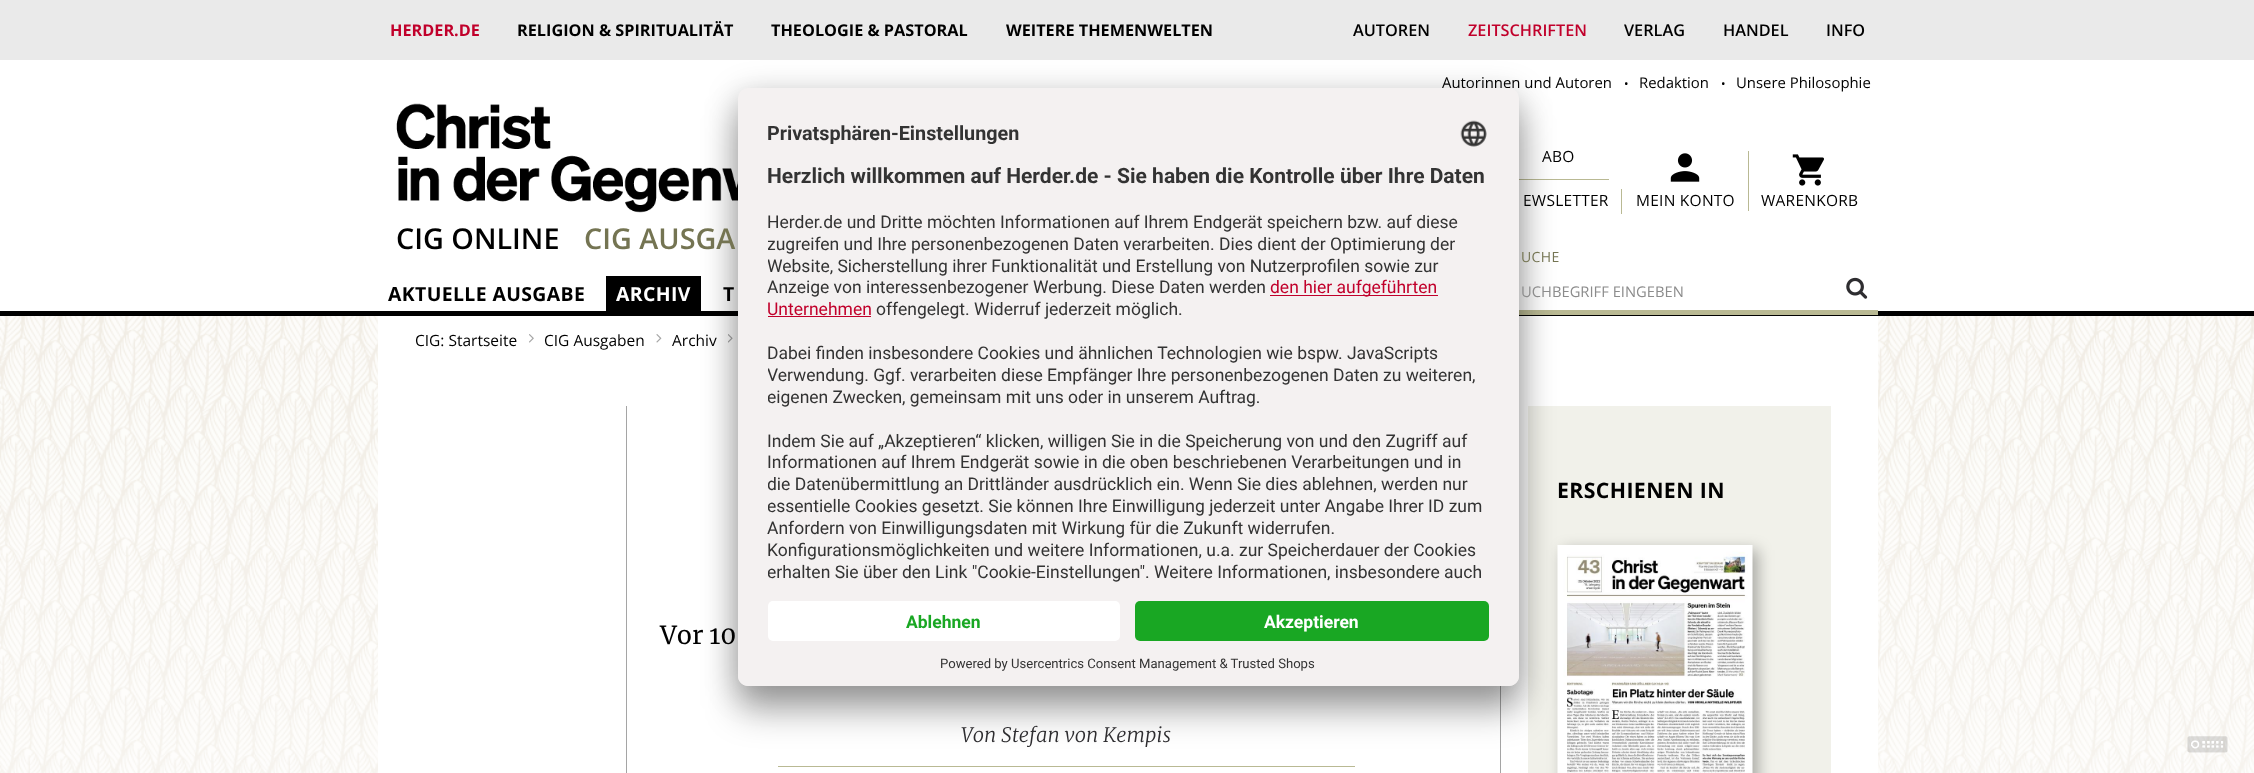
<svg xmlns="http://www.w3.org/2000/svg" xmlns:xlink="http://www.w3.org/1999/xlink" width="2254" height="773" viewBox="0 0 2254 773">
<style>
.cls-1{font:bold 16.25px Open Sans;fill:#c1002b}
.cls-2{font:bold 16.25px Open Sans;fill:#000000}
.cls-3{font:600 16.25px Open Sans;fill:#000000}
.cls-4{font:600 16.25px Open Sans;fill:#c1002b}
.cls-5{font:14.9px Open Sans;fill:#000000}
.cls-6{font:12px Open Sans;fill:#000000}
.cls-7{font:15.5px Open Sans;letter-spacing:0.25px;fill:#000000}
.cls-8{font:600 28.75px Open Sans;fill:#000000}
.cls-9{font:600 28.75px Open Sans;fill:#747452}
.cls-10{font:14px Open Sans;letter-spacing:0.4px;fill:#747452}
.cls-11{font:14.75px Open Sans;fill:#8c8c8c}
.cls-12{font:bold 19.4px Open Sans;letter-spacing:0.4px;fill:#000000}
.cls-13{font:bold 19.4px Open Sans;letter-spacing:0.4px;fill:#ffffff}
.cls-14{font:15.5px Open Sans;fill:#000000}
.cls-15{font:bold 21.25px Open Sans;letter-spacing:0.4px;fill:#000000}
.cls-16{font:25px Merriweather;fill:#000000}
.cls-17{font:italic 300 20px Merriweather;fill:#2e2d30}
.cls-18{font:bold 19.75px Roboto;fill:#333333}
.cls-19{font:bold 21px Roboto;fill:#333333}
.cls-20{font:17.5px Roboto;fill:#333333}
.cls-21{font:17.5px Roboto;fill:#c1002b}
.cls-22{font:bold 17.5px Roboto;fill:#19a723}
.cls-23{font:bold 17.5px Roboto;fill:#ffffff}
.cls-24{font:13.1px Roboto;fill:#333333}
</style>
<defs>
<clipPath id="clip1"><rect x="768" y="159" width="721" height="432"/></clipPath>
</defs>
<rect width="100%" height="100%" fill="#ffffff"/>
<image xlink:href="image0.png" x="0" y="316" width="2254" height="457"/>
<rect fill="#eaeaea" x="0" y="0" width="2254" height="60"/>
<rect fill="#000000" x="0" y="311" width="2254" height="5"/>
<image xlink:href="image1.png" x="396" y="103" width="342" height="110"/>
<rect fill="#b9b993" x="1621" y="189" width="1" height="25"/>
<rect fill="#b9b993" x="1511" y="179" width="98" height="1"/>
<rect fill="#b9b993" x="1748" y="151" width="1" height="60"/>
<image xlink:href="image2.png" x="1670" y="153" width="30" height="29"/>
<image xlink:href="image3.png" x="1792" y="154" width="32" height="32"/>
<rect fill="#b9b993" x="1519" y="310" width="359" height="5"/>
<image xlink:href="image4.png" x="1846" y="277" width="22" height="22"/>
<rect fill="#000000" x="606" y="276" width="95" height="35"/>
<rect fill="#ffffff" x="378" y="316" width="1500" height="457"/>
<image xlink:href="image5.png" x="529" y="334" width="5" height="9"/>
<image xlink:href="image6.png" x="656" y="334" width="6" height="9"/>
<image xlink:href="image7.png" x="728" y="334" width="5" height="9"/>
<rect fill="#a5a5a5" x="626" y="406" width="1" height="367"/>
<rect fill="#f1f1ea" x="1528" y="406" width="303" height="367"/>
<rect fill="#000000" fill-opacity="0.3" filter="blur(7.5px)" x="1563" y="550" width="195" height="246"/>
<image xlink:href="image8.png" x="1557" y="545" width="196" height="228"/>
<rect fill="#b9b993" x="778" y="766" width="577" height="1"/>
<rect fill="#a5a5a5" x="1500" y="686" width="1" height="87"/>
<rect fill="#000000" fill-opacity="0.3" filter="blur(17.5px)" x="738" y="113" width="781" height="598" rx="10"/>
<rect fill="#000000" fill-opacity="0.22" filter="blur(16px)" x="738" y="94" width="781" height="599" rx="10"/>
<image xlink:href="image10.png" x="2187" y="736" width="41" height="17"/>
<text class="cls-1" x="390" y="36">HERDER.DE</text>
<text class="cls-2" x="517" y="36">RELIGION &amp; SPIRITUALITÄT</text>
<text class="cls-2" x="771" y="36">THEOLOGIE &amp; PASTORAL</text>
<text class="cls-2" x="1006" y="36">WEITERE THEMENWELTEN</text>
<text class="cls-3" x="1353" y="36">AUTOREN</text>
<text class="cls-4" x="1468" y="36">ZEITSCHRIFTEN</text>
<text class="cls-3" x="1624" y="36">VERLAG</text>
<text class="cls-3" x="1723" y="36">HANDEL</text>
<text class="cls-3" x="1826" y="36">INFO</text>
<text class="cls-5" x="1442" y="88">Autorinnen und Autoren</text>
<text class="cls-6" x="1624" y="88">•</text>
<text class="cls-5" x="1639" y="88">Redaktion</text>
<text class="cls-6" x="1721" y="88">•</text>
<text class="cls-5" x="1736" y="88">Unsere Philosophie</text>
<text class="cls-7" x="1542" y="162">ABO</text>
<text class="cls-7" x="1523" y="206">EWSLETTER</text>
<text class="cls-7" x="1636" y="206">MEIN KONTO</text>
<text class="cls-7" x="1761" y="206">WARENKORB</text>
<text class="cls-8" x="396" y="249">CIG ONLINE</text>
<text class="cls-9" x="584" y="249">CIG AUSGA</text>
<text class="cls-10" x="1521" y="262">UCHE</text>
<text class="cls-11" x="1521" y="297">UCHBEGRIFF EINGEBEN</text>
<text class="cls-12" x="388" y="301">AKTUELLE AUSGABE</text>
<text class="cls-13" x="616" y="301">ARCHIV</text>
<text class="cls-12" x="723" y="301">T</text>
<text class="cls-14" x="415" y="346">CIG: Startseite</text>
<text class="cls-14" x="544" y="346">CIG Ausgaben</text>
<text class="cls-14" x="672" y="346">Archiv</text>
<text class="cls-15" x="1557" y="498">ERSCHIENEN IN</text>
<text class="cls-16" x="660" y="644">Vor 10</text>
<text class="cls-17" x="961" y="742">Von Stefan von Kempis</text>
<rect fill="#f4f1f1" x="738" y="88" width="781" height="598" rx="10"/>
<text class="cls-18" x="767" y="140">Privatsphären-Einstellungen</text>
<image xlink:href="image9.png" x="1460" y="120" width="27" height="27"/>
<text class="cls-19" x="767" y="183">Herzlich willkommen auf Herder.de - Sie haben die Kontrolle über Ihre Daten</text>
<text class="cls-20" x="767" y="228">Herder.de und Dritte möchten Informationen auf Ihrem Endgerät speichern bzw. auf diese</text>
<g clip-path="url(#clip1)">
<text class="cls-20"><tspan x="767" y="250">zugreifen und Ihre personenbezogenen Daten verarbeiten. Dies dient der Optimierung der</tspan><tspan x="767" y="272">Website, Sicherstellung ihrer Funktionalität und Erstellung von Nutzerprofilen sowie zur</tspan></text>
</g>
<text class="cls-20" x="767" y="293">Anzeige von interessenbezogener Werbung. Diese Daten werden</text>
<rect fill="#c1002b" x="1270" y="295" width="168" height="1"/>
<text class="cls-21" x="1270" y="293">den hier aufgeführten</text>
<text class="cls-21" x="767" y="315">Unternehmen</text>
<rect fill="#c1002b" x="768" y="316" width="103" height="1"/>
<text class="cls-20" x="876" y="315">offengelegt. Widerruf jederzeit möglich.</text>
<text class="cls-20" x="767" y="359">Dabei finden insbesondere Cookies und ähnlichen Technologien wie bspw. JavaScripts</text>
<g clip-path="url(#clip1)">
<text class="cls-20"><tspan x="767" y="381">Verwendung. Ggf. verarbeiten diese Empfänger Ihre personenbezogenen Daten zu weiteren,</tspan><tspan x="767" y="403">eigenen Zwecken, gemeinsam mit uns oder in unserem Auftrag.</tspan></text>
</g>
<text class="cls-20"><tspan x="767" y="447">Indem Sie auf „Akzeptieren“ klicken, willigen Sie in die Speicherung von und den Zugriff auf</tspan><tspan x="767" y="468">Informationen auf Ihrem Endgerät sowie in die oben beschriebenen Verarbeitungen und in</tspan></text>
<g clip-path="url(#clip1)">
<text class="cls-20"><tspan x="767" y="490">die Datenübermittlung an Drittländer ausdrücklich ein. Wenn Sie dies ablehnen, werden nur</tspan><tspan x="767" y="512">essentielle Cookies gesetzt. Sie können Ihre Einwilligung jederzeit unter Angabe Ihrer ID zum</tspan></text>
</g>
<text class="cls-20"><tspan x="767" y="534">Anfordern von Einwilligungsdaten mit Wirkung für die Zukunft widerrufen.</tspan><tspan x="767" y="556">Konfigurationsmöglichkeiten und weitere Informationen, u.a. zur Speicherdauer der Cookies</tspan></text>
<g clip-path="url(#clip1)">
<text class="cls-20" x="767" y="578">erhalten Sie über den Link "Cookie-Einstellungen". Weitere Informationen, insbesondere auch</text>
</g>
<path fill="#f4f1f1" d="M738 591H1519V676C1519 681.5 1514.5 686 1509 686H748C742.5 686 738 681.5 738 676Z"/>
<rect fill="#ffffff" x="768" y="601" width="352" height="40" rx="5"/>
<text class="cls-22" x="906" y="628">Ablehnen</text>
<rect fill="#19a723" x="1135" y="601" width="354" height="40" rx="5"/>
<text class="cls-23" x="1264" y="628">Akzeptieren</text>
<text class="cls-24" x="940" y="668">Powered by Usercentrics Consent Management &amp; Trusted Shops</text>
</svg>
